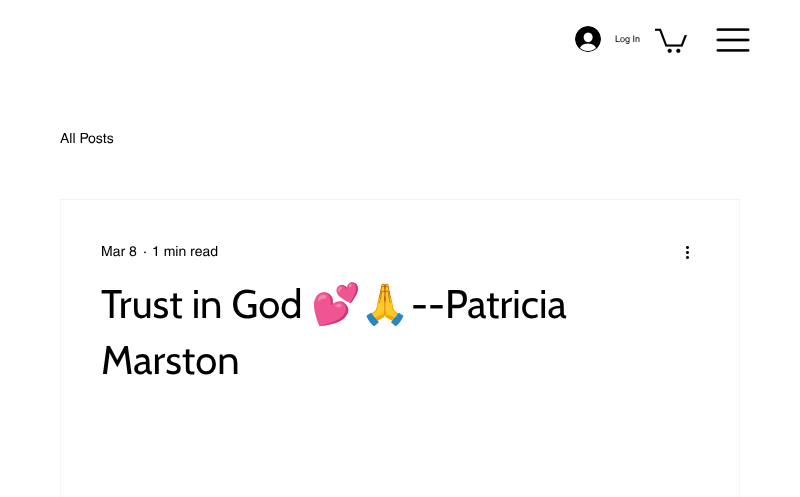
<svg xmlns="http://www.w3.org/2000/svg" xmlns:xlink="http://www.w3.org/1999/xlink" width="800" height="497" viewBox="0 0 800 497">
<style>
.cls-1{font:9px helvetica;fill:#000000}
.cls-2{font:14px helvetica;fill:#000000}
.cls-3{font:40px Cabin;fill:#000000}
.cls-4{font:40px Noto Color Emoji;fill:#000000}
</style>
<rect width="100%" height="100%" fill="#ffffff"/>
<image xlink:href="image0.png" x="575" y="26" width="26" height="26"/>
<image xlink:href="image1.png" x="655" y="28" width="32" height="25"/>
<image xlink:href="image2.png" x="716" y="28" width="34" height="24"/>
<rect fill="none" stroke="#f4f4f4" x="60.5" y="199.5" width="679" height="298"/>
<image xlink:href="image3.png" x="686" y="246" width="3" height="13"/>
<text class="cls-1" x="615" y="42">Log In</text>
<text class="cls-2" x="60" y="143">All Posts</text>
<text class="cls-2" x="101" y="256">Mar 8</text>
<text class="cls-2" x="143" y="256">·</text>
<text class="cls-2" x="152" y="256">1 min read</text>
<text class="cls-3" x="101" y="318">Trust in God</text>
<text class="cls-4" x="311" y="318">💕🙏</text>
<text class="cls-3" x="411" y="318">--Patricia</text>
<text class="cls-3" x="101" y="374">Marston</text>
</svg>
